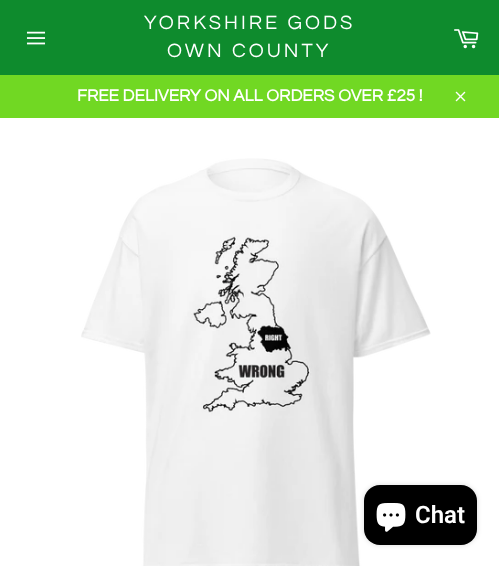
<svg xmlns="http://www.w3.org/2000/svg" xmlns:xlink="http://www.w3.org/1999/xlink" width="499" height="566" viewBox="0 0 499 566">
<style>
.cls-1{font:20px Questrial;letter-spacing:3px;fill:#ffffff}
.cls-2{font:bold 17px Questrial;fill:#ffffff}
.cls-3{font:600 24px Roboto;fill:#ffffff}
</style>
<rect width="100%" height="100%" fill="#0e8b2d"/>
<image xlink:href="image0.png" x="26" y="31" width="20" height="14"/>
<image xlink:href="image1.png" x="454" y="29" width="25" height="20"/>
<rect fill="#71d823" x="0" y="75" width="499" height="43"/>
<image xlink:href="image2.png" x="455" y="91" width="11" height="11"/>
<rect fill="#ffffff" x="0" y="118" width="499" height="448"/>
<image xlink:href="image3.png" x="81" y="158" width="350" height="408"/>
<rect fill="#000000" fill-opacity="0.15" filter="blur(2.5px)" x="364" y="485" width="113" height="60" rx="16"/>
<rect fill="#000000" x="364" y="485" width="113" height="60" rx="16"/>
<image xlink:href="image4.png" x="376" y="503" width="30" height="29"/>
<text class="cls-1" x="144" y="29">YORKSHIRE GODS</text>
<text class="cls-1" x="167" y="57">OWN COUNTY</text>
<text class="cls-2" x="77" y="101">FREE DELIVERY ON ALL ORDERS OVER £25 !</text>
<text class="cls-3" x="415" y="523">Chat</text>
</svg>
